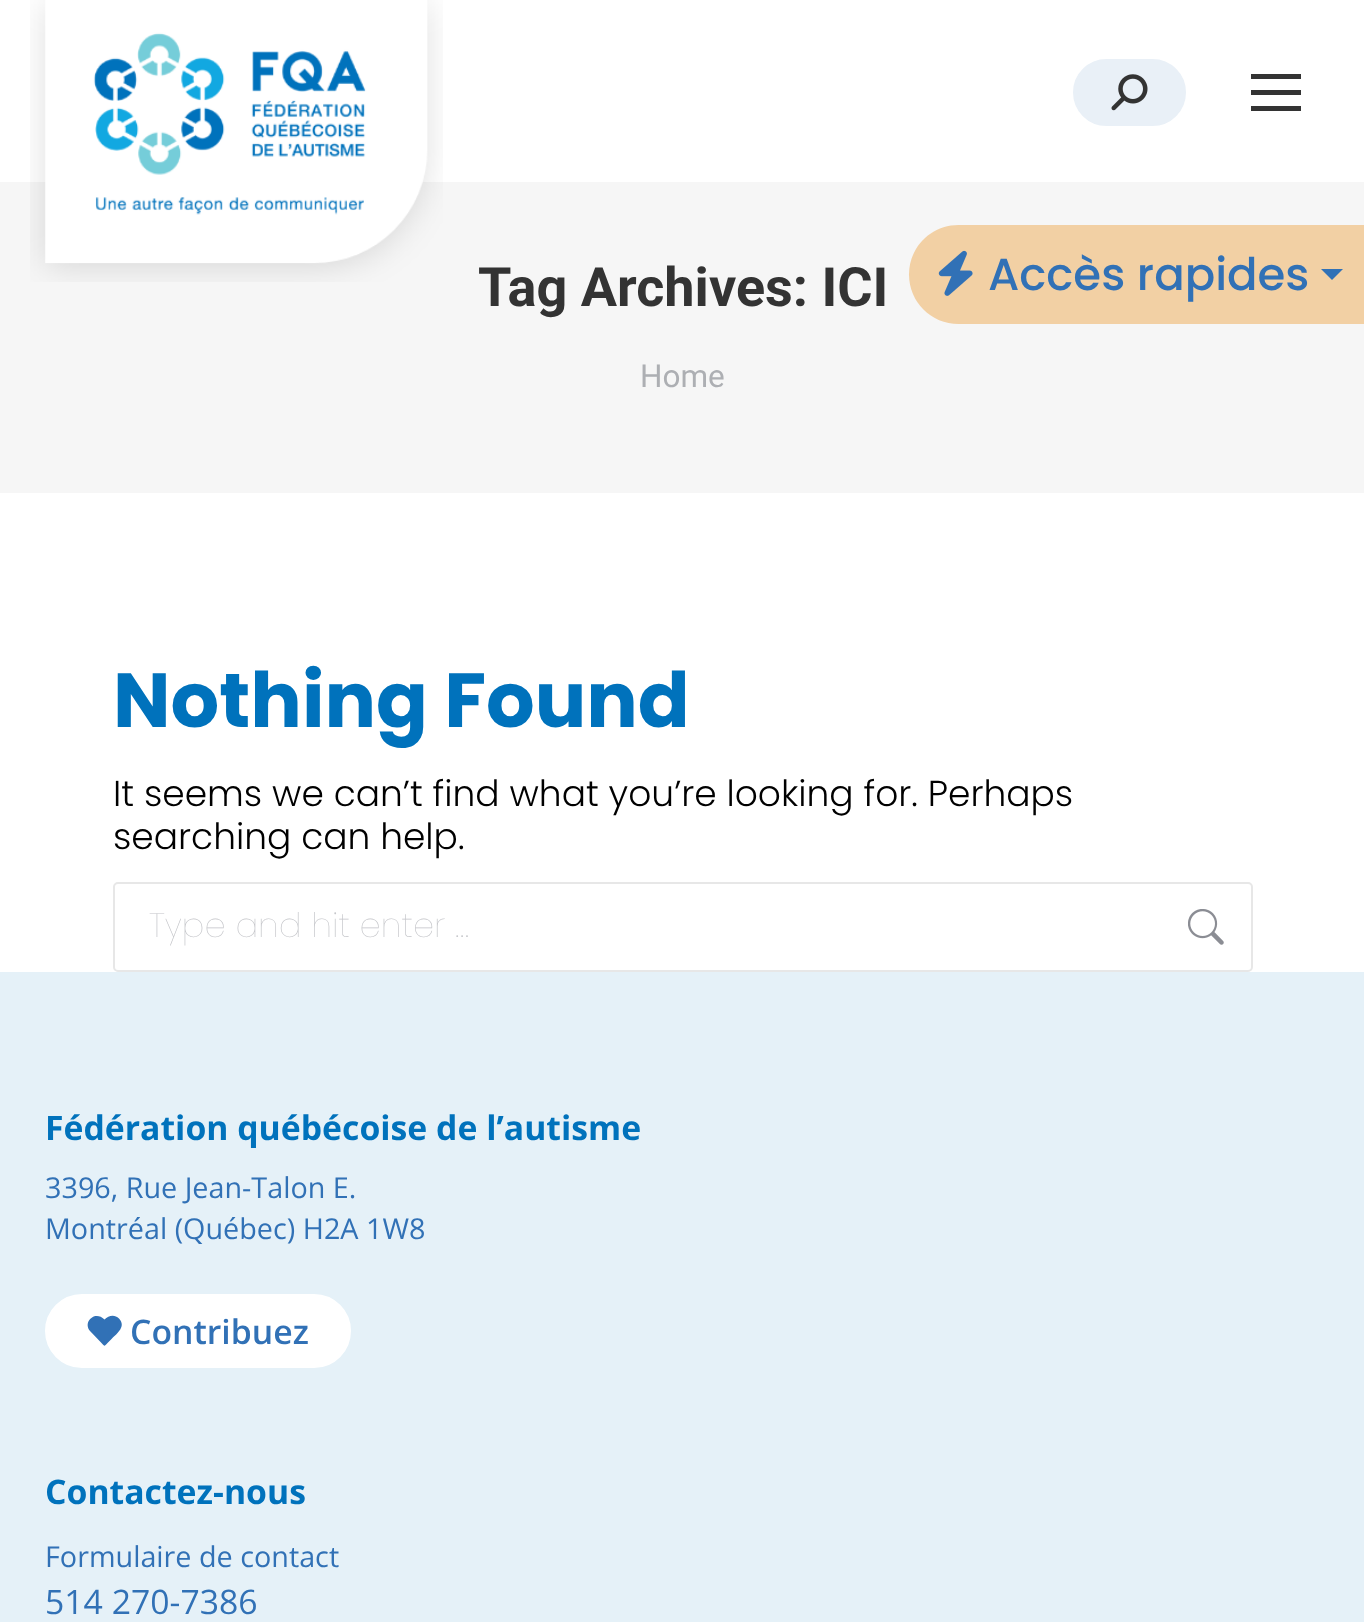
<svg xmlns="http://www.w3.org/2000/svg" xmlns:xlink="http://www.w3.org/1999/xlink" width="1364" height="1622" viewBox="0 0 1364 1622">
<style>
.cls-1{font:bold 54px Roboto;fill:#333333}
.cls-2{font:31.5px Roboto;fill:#adafb3}
.cls-3{font:bold 76.5px Poppins;fill:#0072bc}
.cls-4{font:300 36px Poppins;fill:#000000}
.cls-5{font:100 33.75px Poppins;fill:#c4c5c9}
.cls-6{font:bold 33.75px Open Sans;fill:#0072bc}
.cls-7{font:28.75px Open Sans;fill:#3171b6}
.cls-8{font:600 33.75px Open Sans;fill:#3171b6}
.cls-9{font:33.75px Open Sans;fill:#3171b6}
.cls-10{font:500 45px Poppins;fill:#3171b6}
</style>
<rect width="100%" height="100%" fill="#ffffff"/>
<rect fill="#f6f6f6" x="0" y="182" width="1364" height="311"/>
<image xlink:href="image0.png" x="30" y="0" width="413" height="282"/>
<rect fill="#e9f0f7" stroke="#e9f0f7" stroke-width="5" x="1075.5" y="61.5" width="108" height="62" rx="31"/>
<image xlink:href="image1.png" x="1111" y="74" width="37" height="37"/>
<rect fill="#333333" x="1251" y="74" width="50" height="5"/>
<rect fill="#333333" x="1251" y="90" width="50" height="5"/>
<rect fill="#333333" x="1251" y="106" width="50" height="5"/>
<rect fill="none" stroke="#e7e7e7" stroke-width="2" x="114" y="883" width="1138" height="88" rx="4"/>
<image xlink:href="image2.png" x="1188" y="909" width="36" height="36"/>
<rect fill="#e5f1f8" x="0" y="972" width="1364" height="650"/>
<rect fill="#ffffff" stroke="#ffffff" stroke-width="9" x="49.5" y="1298.5" width="297" height="65" rx="32.5"/>
<path fill="#3171b6" d="M119 1318.5C114.5 1314 108.5 1315.5 104.5 1319.5C95 1310 82.5 1322 90 1331L101.5 1343C105 1346.5 104 1346.5 107.5 1343L112 1338.5C117 1333.5 126.5 1326.5 119 1318.5Z"/>
<path fill="#f2d0a4" d="M958.5 225H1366V324H958.5C931 324 909 302 909 274.5C909 247 931 225 958.5 225Z"/>
<image xlink:href="image3.png" x="938" y="250" width="35" height="46"/>
<path fill="#3171b6" d="M1321 269H1343L1332 280Z"/>
<text class="cls-1" x="478" y="306">Tag Archives: ICI</text>
<text class="cls-2" x="640" y="387">Home</text>
<text class="cls-3" x="113" y="727">Nothing Found</text>
<text class="cls-4"><tspan x="113" y="806">It seems we can’t find what you’re looking for. Perhaps</tspan><tspan x="113" y="849">searching can help.</tspan></text>
<text class="cls-5" x="149" y="937">Type and hit enter …</text>
<text class="cls-6" x="45" y="1140">Fédération québécoise de l’autisme</text>
<text class="cls-7"><tspan x="45" y="1198">3396, Rue Jean-Talon E.</tspan><tspan x="45" y="1239">Montréal (Québec) H2A 1W8</tspan></text>
<text class="cls-8" x="130" y="1344">Contribuez</text>
<text class="cls-6" x="45" y="1504">Contactez-nous</text>
<text class="cls-7" x="45" y="1567">Formulaire de contact</text>
<text class="cls-9" x="45" y="1614">514 270-7386</text>
<text class="cls-10" x="988" y="290">Accès rapides</text>
</svg>
